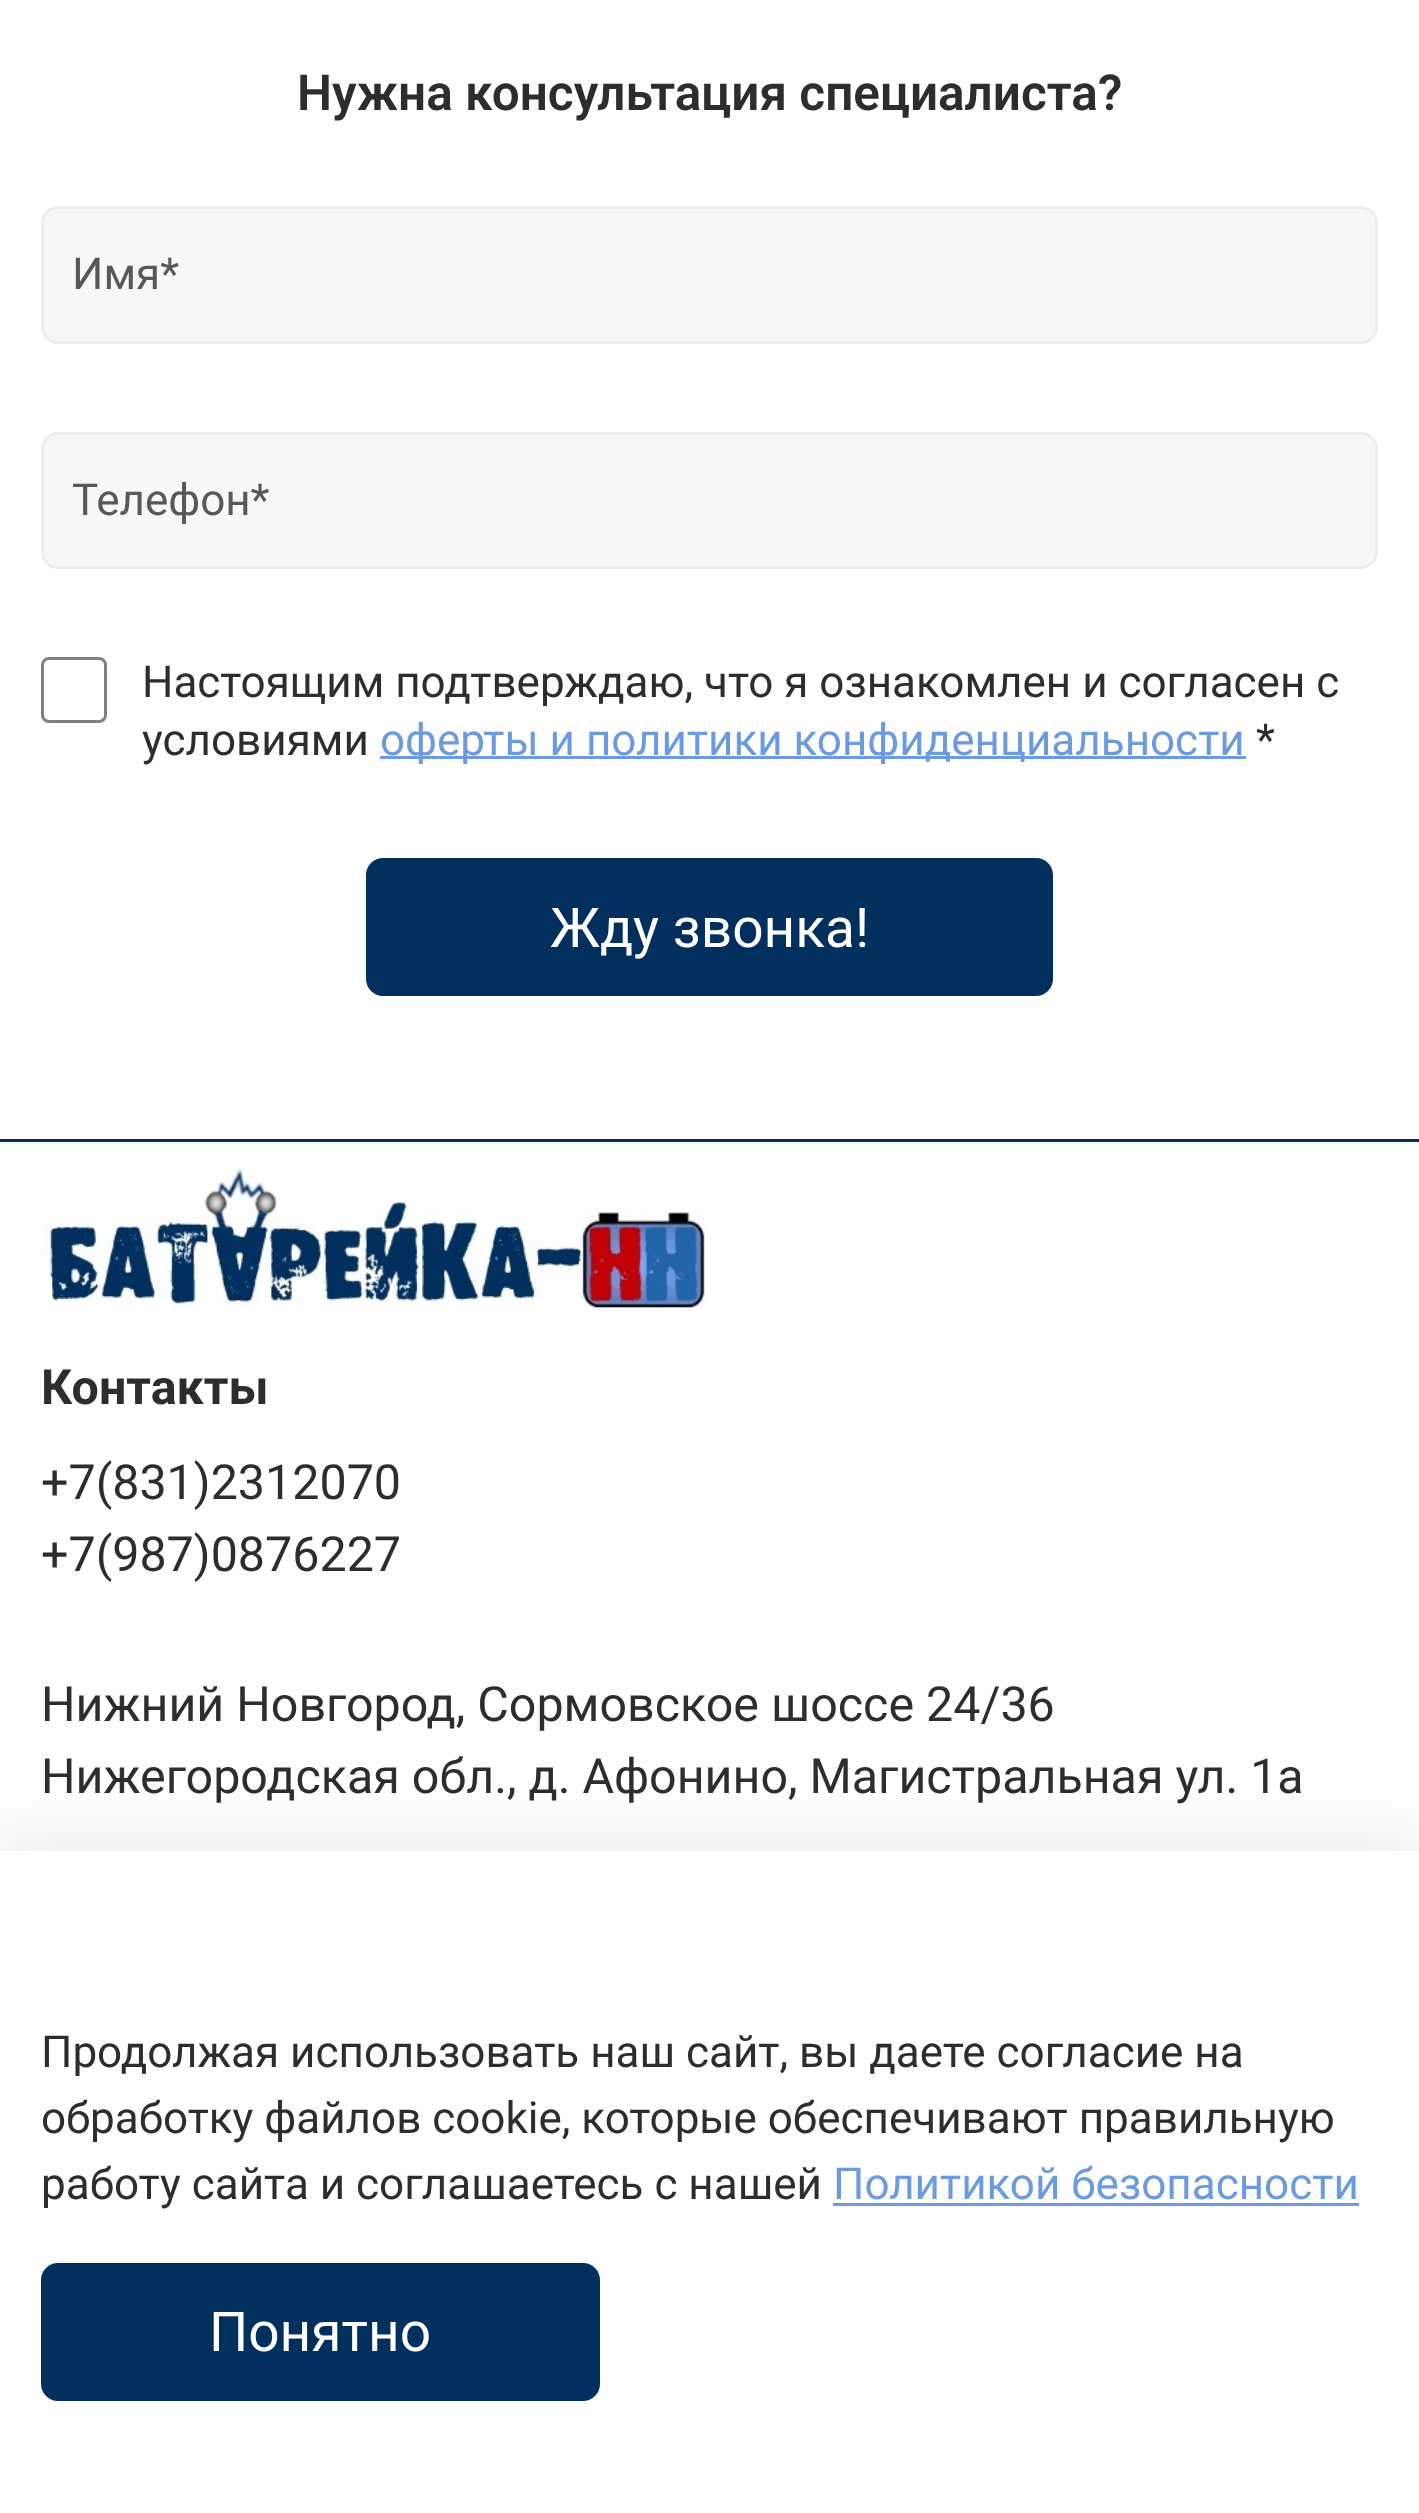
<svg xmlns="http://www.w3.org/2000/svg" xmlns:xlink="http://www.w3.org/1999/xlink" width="1419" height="2513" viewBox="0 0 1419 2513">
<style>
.cls-1{font:600 49.5px Roboto;fill:#2d2d2d}
.cls-2{font:44px Roboto;fill:#585858}
.cls-3{font:44px Roboto;fill:#2d2d2d}
.cls-4{font:44px Roboto;fill:#6b9ade}
.cls-5{font:55px Roboto;fill:#ffffff}
.cls-6{font:bold 48.4px Roboto;fill:#2d2d2d}
.cls-7{font:48.4px Roboto;fill:#2d2d2d}
</style>
<rect width="100%" height="100%" fill="#ffffff"/>
<rect fill="#f7f7f7" stroke="#ededed" stroke-width="3" x="42.5" y="207.5" width="1334" height="135" rx="15.5"/>
<rect fill="#f7f7f7" stroke="#ededed" stroke-width="3" x="42.5" y="433.5" width="1334" height="134" rx="15.5"/>
<rect fill="none" stroke="#808080" stroke-width="3" x="42.5" y="658.5" width="63" height="63" rx="6.5"/>
<rect fill="#6b9ade" x="380" y="756" width="866" height="3"/>
<rect fill="#01305e" x="366" y="858" width="687" height="138" rx="17"/>
<rect fill="#01305e" x="0" y="1139" width="1419" height="3"/>
<image xlink:href="image0.png" x="41" y="1168" width="668" height="141"/>
<rect fill="#000000" fill-opacity="0.09" filter="blur(31.5px)" x="-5" y="1843" width="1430" height="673"/>
<rect fill="#ffffff" x="0" y="1851" width="1419" height="662"/>
<rect fill="#6b9ade" x="833" y="2203" width="526" height="3"/>
<rect fill="#01305e" x="41" y="2263" width="559" height="138" rx="17"/>
<text class="cls-1" x="297" y="110">Нужна консультация специалиста?</text>
<text class="cls-2" x="72" y="289">Имя*</text>
<text class="cls-2" x="72" y="515">Телефон*</text>
<text class="cls-3"><tspan x="142" y="697">Настоящим подтверждаю, что я ознакомлен и согласен с</tspan><tspan x="142" y="755">условиями</tspan></text>
<text class="cls-4" x="380" y="755">оферты и политики конфиденциальности</text>
<text class="cls-3" x="1256" y="755">*</text>
<text class="cls-5" x="550" y="947">Жду звонка!</text>
<text class="cls-6" x="41" y="1404">Контакты</text>
<text class="cls-7"><tspan x="41" y="1499">+7(831)2312070</tspan><tspan x="41" y="1571">+7(987)0876227</tspan></text>
<text class="cls-7"><tspan x="41" y="1721">Нижний Новгород, Сормовское шоссе 24/36</tspan><tspan x="41" y="1793">Нижегородская обл., д. Афонино, Магистральная ул. 1а</tspan></text>
<text class="cls-3"><tspan x="41" y="2067">Продолжая использовать наш сайт, вы даете согласие на</tspan><tspan x="41" y="2133">обработку файлов cookie, которые обеспечивают правильную</tspan><tspan x="41" y="2199">работу сайта и соглашаетесь с нашей</tspan></text>
<text class="cls-4" x="833" y="2199">Политикой безопасности</text>
<text class="cls-5" x="209" y="2351">Понятно</text>
</svg>
